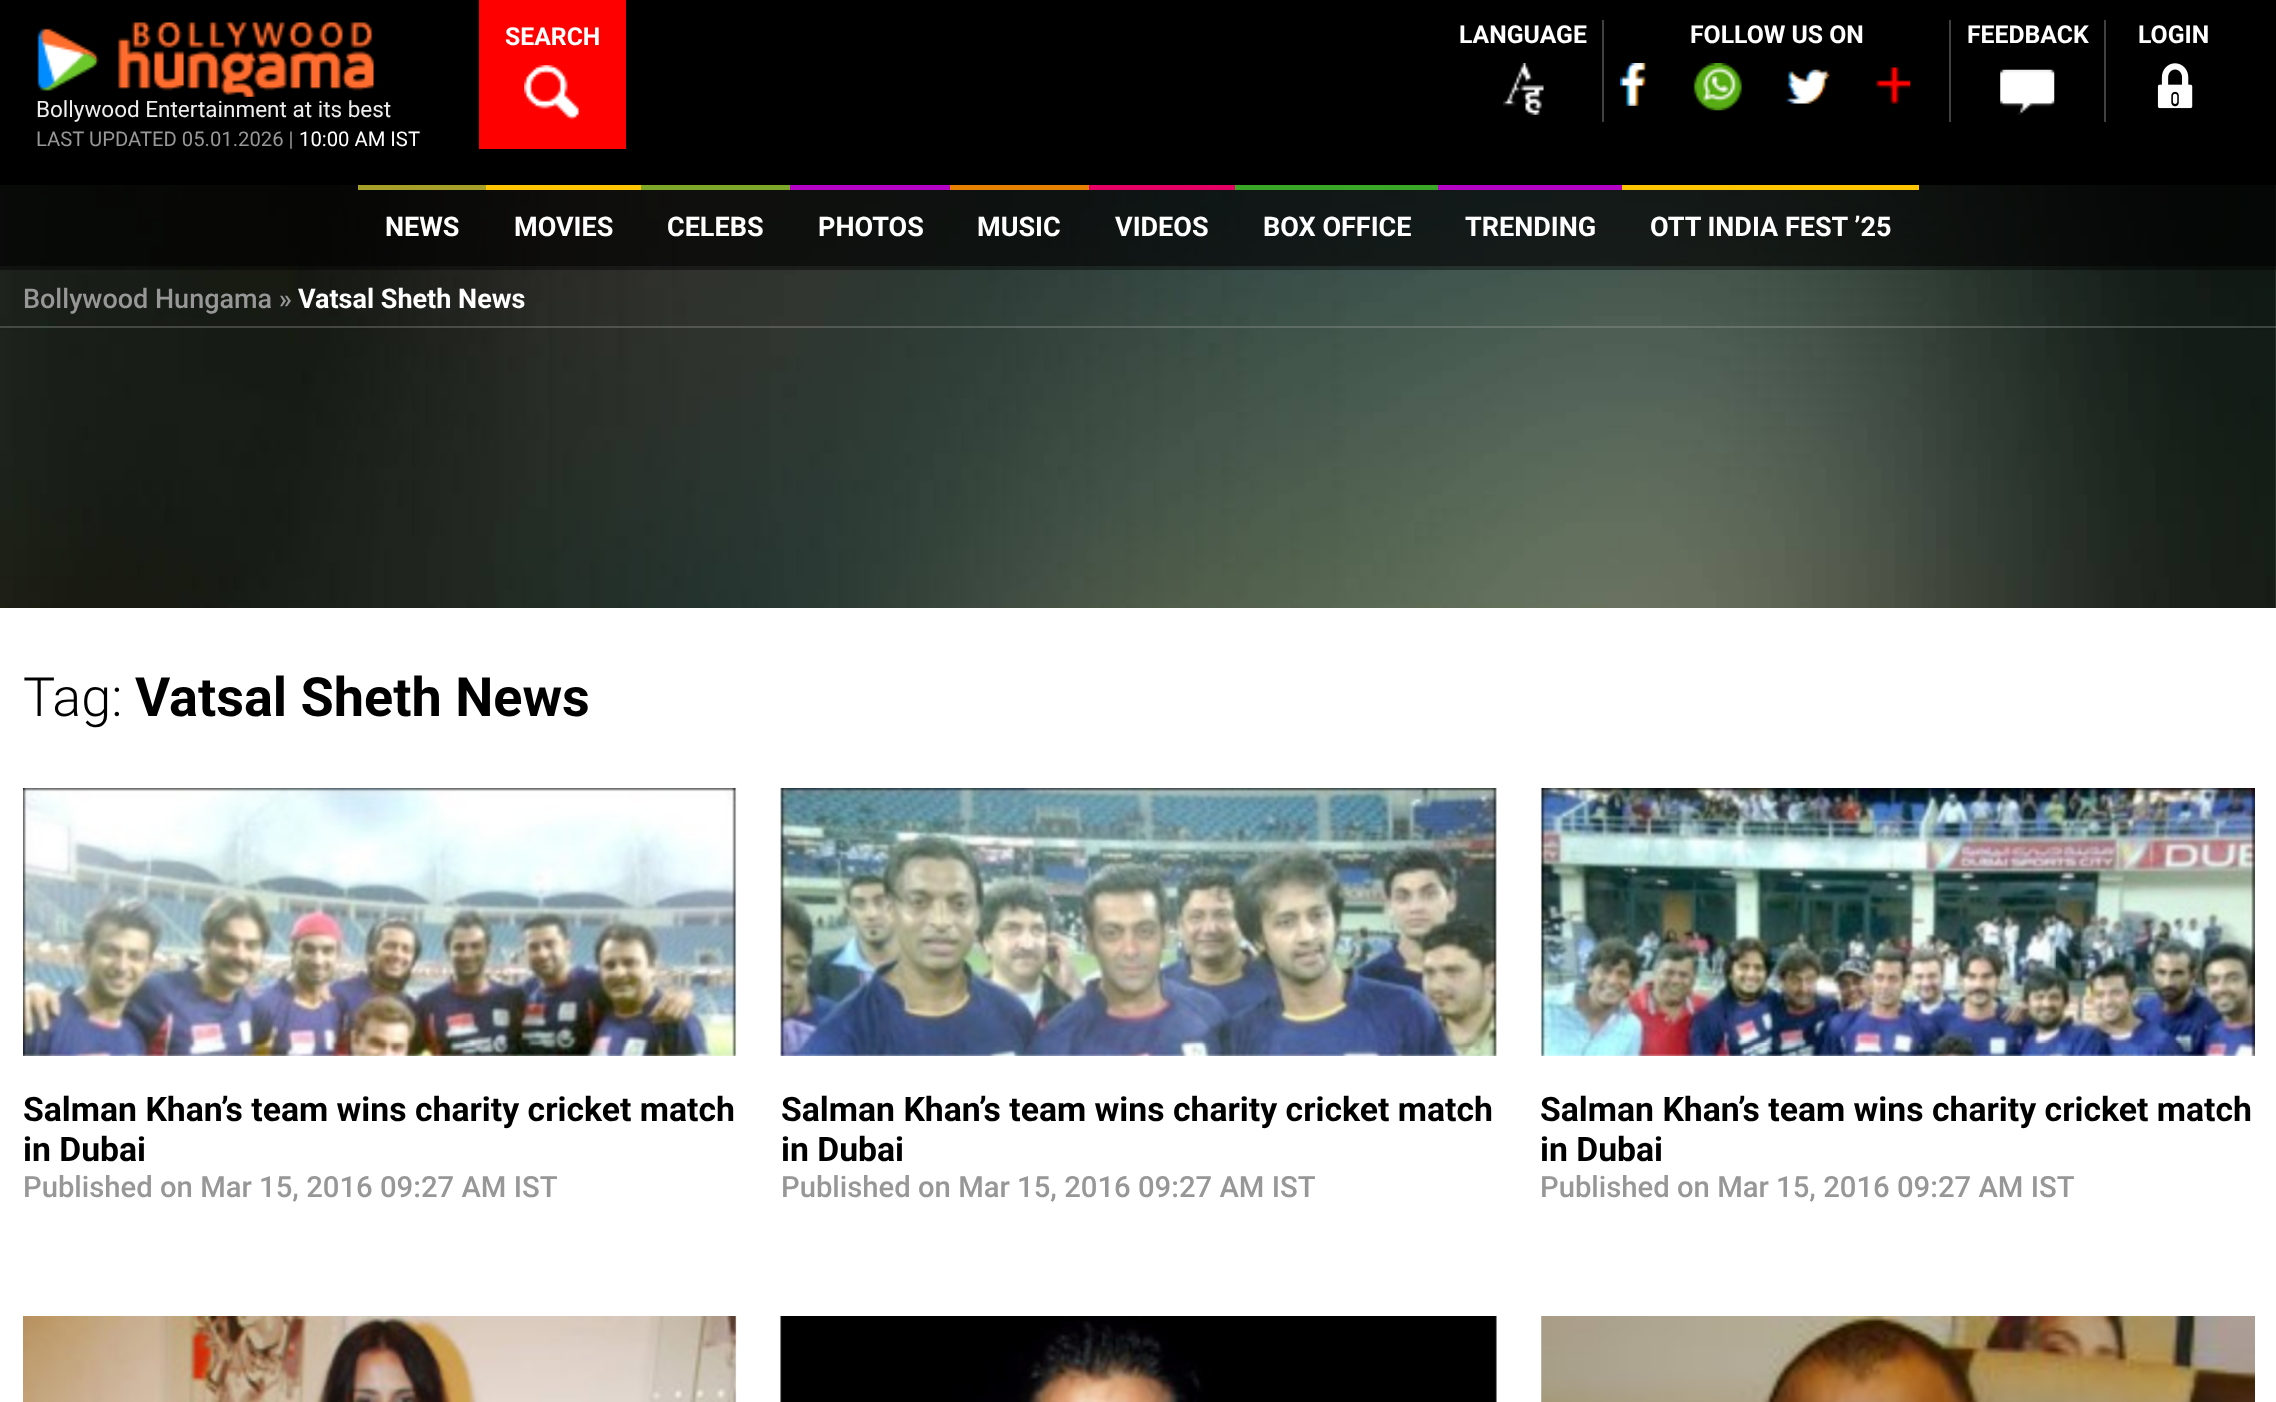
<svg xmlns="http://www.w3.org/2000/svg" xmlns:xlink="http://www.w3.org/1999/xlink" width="2276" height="1402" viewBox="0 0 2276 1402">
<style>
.cls-1{font:bold 24.75px Roboto;fill:#ffffff}
.cls-2{font:22.5px Roboto;fill:#eeeeee}
.cls-3{font:20.25px Roboto;fill:#979797}
.cls-4{font:20.25px Roboto;fill:#ffffff}
.cls-5{font:bold 27px Roboto;fill:#ffffff}
.cls-6{font:500 27px Roboto;fill:#979797}
.cls-7{font:300 54px Roboto;fill:#000000}
.cls-8{font:bold 54px Roboto;fill:#000000}
.cls-9{font:bold 33.75px Roboto;fill:#000000}
.cls-10{font:500 29.25px Roboto;fill:#979797}
</style>
<rect width="100%" height="100%" fill="#ffffff"/>
<image xlink:href="image0.png" x="0" y="185" width="2276" height="423"/>
<rect fill="#000000" x="0" y="0" width="2276" height="185"/>
<rect fill="#ff0000" x="479" y="0" width="147" height="149"/>
<image xlink:href="image1.png" x="524" y="65" width="57" height="55"/>
<rect fill="#404040" x="1602" y="20" width="2" height="102"/>
<image xlink:href="image2.png" x="1503" y="63" width="41" height="52"/>
<rect fill="#404040" x="1949" y="20" width="2" height="102"/>
<image xlink:href="image3.png" x="1620" y="63" width="26" height="43"/>
<image xlink:href="image4.png" x="1693" y="63" width="49" height="48"/>
<image xlink:href="image5.png" x="1786" y="69" width="44" height="35"/>
<image xlink:href="image6.png" x="1876" y="67" width="35" height="38"/>
<rect fill="#404040" x="2104" y="20" width="2" height="102"/>
<image xlink:href="image7.png" x="2000" y="69" width="55" height="46"/>
<image xlink:href="image8.png" x="2157" y="63" width="36" height="46"/>
<image xlink:href="image9.png" x="37" y="22" width="337" height="75"/>
<rect fill="#000000" fill-opacity="0.43" x="0" y="185" width="2276" height="85"/>
<rect fill="#000000" fill-opacity="0.43" x="0" y="185" width="2276" height="81"/>
<rect fill="#a6a028" x="358" y="185" width="128" height="5"/>
<rect fill="#ffc501" x="486" y="185" width="155" height="5"/>
<rect fill="#7da729" x="641" y="185" width="149" height="5"/>
<rect fill="#b403c5" x="790" y="185" width="160" height="5"/>
<rect fill="#e78200" x="950" y="185" width="139" height="5"/>
<rect fill="#e60065" x="1089" y="185" width="146" height="5"/>
<rect fill="#3aa726" x="1235" y="185" width="203" height="5"/>
<rect fill="#b403c5" x="1438" y="185" width="184" height="5"/>
<rect fill="#ffc501" x="1622" y="185" width="297" height="5"/>
<rect fill="#a8a8a7" fill-opacity="0.3" x="0" y="326" width="2276" height="2"/>
<image xlink:href="image10.png" x="23" y="788" width="714" height="268"/>
<image xlink:href="image11.png" x="780" y="788" width="717" height="268"/>
<image xlink:href="image12.png" x="1540" y="788" width="715" height="268"/>
<image xlink:href="image13.png" x="23" y="1316" width="714" height="86"/>
<image xlink:href="image14.png" x="735" y="1316" width="2" height="86"/>
<image xlink:href="image15.png" x="780" y="1316" width="717" height="86"/>
<image xlink:href="image16.png" x="780" y="1316" width="717" height="86"/>
<image xlink:href="image17.png" x="1541" y="1316" width="714" height="86"/>
<image xlink:href="image18.png" x="1541" y="1316" width="1" height="86"/>
<text class="cls-1" x="505" y="45">SEARCH</text>
<text class="cls-1" x="1459" y="43">LANGUAGE</text>
<text class="cls-1" x="1690" y="43">FOLLOW US ON</text>
<text class="cls-1" x="1967" y="43">FEEDBACK</text>
<text class="cls-1" x="2138" y="43">LOGIN</text>
<text class="cls-2" x="36" y="117">Bollywood Entertainment at its best</text>
<text class="cls-3" x="36" y="146">LAST UPDATED 05.01.2026 |</text>
<text class="cls-4" x="299" y="146">10:00 AM IST</text>
<text class="cls-5" x="385" y="236">NEWS</text>
<text class="cls-5" x="514" y="236">MOVIES</text>
<text class="cls-5" x="667" y="236">CELEBS</text>
<text class="cls-5" x="818" y="236">PHOTOS</text>
<text class="cls-5" x="977" y="236">MUSIC</text>
<text class="cls-5" x="1115" y="236">VIDEOS</text>
<text class="cls-5" x="1263" y="236">BOX OFFICE</text>
<text class="cls-5" x="1465" y="236">TRENDING</text>
<text class="cls-5" x="1650" y="236">OTT INDIA FEST ’25</text>
<text class="cls-6" x="23" y="308">Bollywood Hungama »</text>
<text class="cls-5" x="298" y="308">Vatsal Sheth News</text>
<text class="cls-7" x="23" y="716">Tag:</text>
<text class="cls-8" x="135" y="716">Vatsal Sheth News</text>
<text class="cls-9"><tspan x="23" y="1121">Salman Khan’s team wins charity cricket match</tspan><tspan x="23" y="1161">in Dubai</tspan></text>
<text class="cls-10" x="23" y="1197">Published on Mar 15, 2016 09:27 AM IST</text>
<text class="cls-9"><tspan x="781" y="1121">Salman Khan’s team wins charity cricket match</tspan><tspan x="781" y="1161">in Dubai</tspan></text>
<text class="cls-10" x="781" y="1197">Published on Mar 15, 2016 09:27 AM IST</text>
<text class="cls-9"><tspan x="1540" y="1121">Salman Khan’s team wins charity cricket match</tspan><tspan x="1540" y="1161">in Dubai</tspan></text>
<text class="cls-10" x="1540" y="1197">Published on Mar 15, 2016 09:27 AM IST</text>
</svg>
